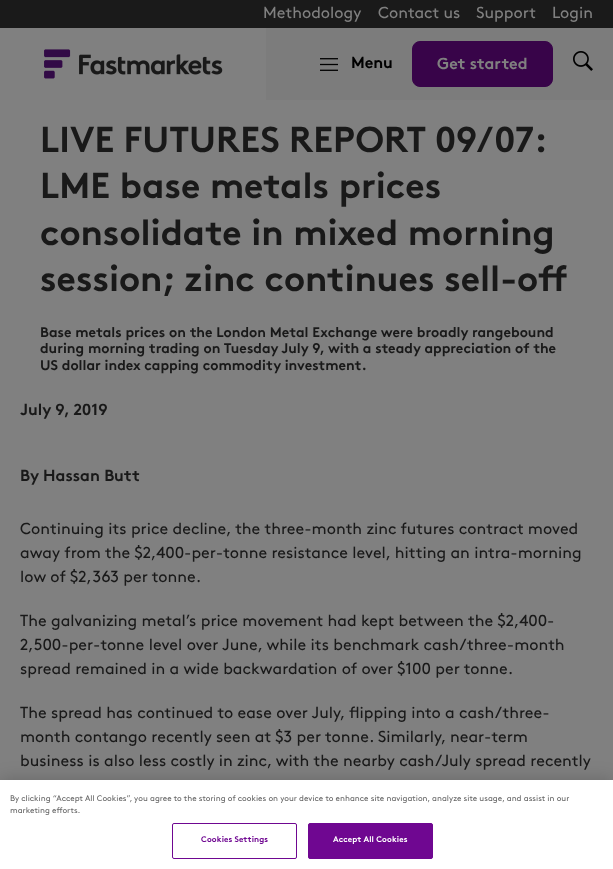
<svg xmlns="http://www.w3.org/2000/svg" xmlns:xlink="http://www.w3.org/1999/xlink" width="613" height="869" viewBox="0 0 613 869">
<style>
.cls-1{font:16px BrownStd;fill:#808080}
.cls-2{font:bold 16px BrownStd;fill:#000000}
.cls-3{font:bold 16px BrownStd;fill:#808080}
.cls-4{font:bold 36px BrownStd;fill:#191919}
.cls-5{font:bold 14px BrownStd;fill:#191919}
.cls-6{font:bold 16px BrownStd;fill:#191919}
.cls-7{font:16px BrownStd;fill:#191919}
.cls-8{font:8.13px BrownStd;fill:#696969}
.cls-9{font:bold 8.13px BrownStd;letter-spacing:0.1px;fill:#6f0791}
.cls-10{font:bold 8.13px BrownStd;letter-spacing:0.1px;fill:#ffffff}
</style>
<rect width="100%" height="100%" fill="#808080"/>
<rect fill="#1a1a1a" x="0" y="0" width="613" height="28"/>
<rect fill="#7c7c7c" x="266" y="28" width="347" height="72"/>
<image xlink:href="image0.png" x="44" y="49" width="179" height="30"/>
<image xlink:href="image1.png" x="320" y="58" width="18" height="13"/>
<rect fill="#380449" stroke="#380449" x="412.5" y="41.5" width="140" height="45" rx="7.5"/>
<image xlink:href="image2.png" x="573" y="51" width="20" height="20"/>
<rect fill="#000000" fill-opacity="0.2" filter="blur(9px)" x="0" y="780" width="613" height="89"/>
<rect fill="#ffffff" x="0" y="780" width="613" height="89"/>
<rect fill="none" stroke="#6f0791" x="172.5" y="823.5" width="124" height="35" rx="1.5"/>
<rect fill="#6f0791" stroke="#6f0791" x="308.5" y="823.5" width="124" height="35" rx="1.5"/>
<text class="cls-1" x="263" y="18">Methodology</text>
<text class="cls-1" x="378" y="18">Contact us</text>
<text class="cls-1" x="476" y="18">Support</text>
<text class="cls-1" x="552" y="18">Login</text>
<text class="cls-2" x="351" y="68">Menu</text>
<text class="cls-3" x="437" y="69">Get started</text>
<text class="cls-4"><tspan x="40" y="152" word-spacing="-0.5">LIVE FUTURES REPORT 09/07:</tspan><tspan x="40" y="198">LME base metals prices</tspan><tspan x="40" y="245">consolidate in mixed morning</tspan><tspan x="40" y="291">session; zinc continues sell-off</tspan></text>
<text class="cls-5"><tspan x="40" y="337">Base metals prices on the London Metal Exchange were broadly rangebound</tspan><tspan x="40" y="353">during morning trading on Tuesday July 9, with a steady appreciation of the</tspan><tspan x="40" y="370">US dollar index capping commodity investment.</tspan></text>
<text class="cls-6" x="20" y="415">July 9, 2019</text>
<text class="cls-6" x="20" y="481">By Hassan Butt</text>
<text class="cls-7"><tspan x="20" y="534">Continuing its price decline, the three-month zinc futures contract moved</tspan><tspan x="20" y="558">away from the $2,400-per-tonne resistance level, hitting an intra-morning</tspan><tspan x="20" y="582">low of $2,363 per tonne.</tspan></text>
<text class="cls-7"><tspan x="20" y="626">The galvanizing metal’s price movement had kept between the $2,400-</tspan><tspan x="20" y="650">2,500-per-tonne level over June, while its benchmark cash/three-month</tspan><tspan x="20" y="674">spread remained in a wide backwardation of over $100 per tonne.</tspan></text>
<text class="cls-7"><tspan x="20" y="718">The spread has continued to ease over July, flipping into a cash/three-</tspan><tspan x="20" y="742">month contango recently seen at $3 per tonne. Similarly, near-term</tspan><tspan x="20" y="766">business is also less costly in zinc, with the nearby cash/July spread recently</tspan></text>
<text class="cls-8"><tspan x="10" y="801">By clicking “Accept All Cookies”, you agree to the storing of cookies on your device to enhance site navigation, analyze site usage, and assist in our</tspan><tspan x="10" y="813">marketing efforts.</tspan></text>
<text class="cls-9" x="201" y="842">Cookies Settings</text>
<text class="cls-10" x="333" y="842">Accept All Cookies</text>
</svg>
